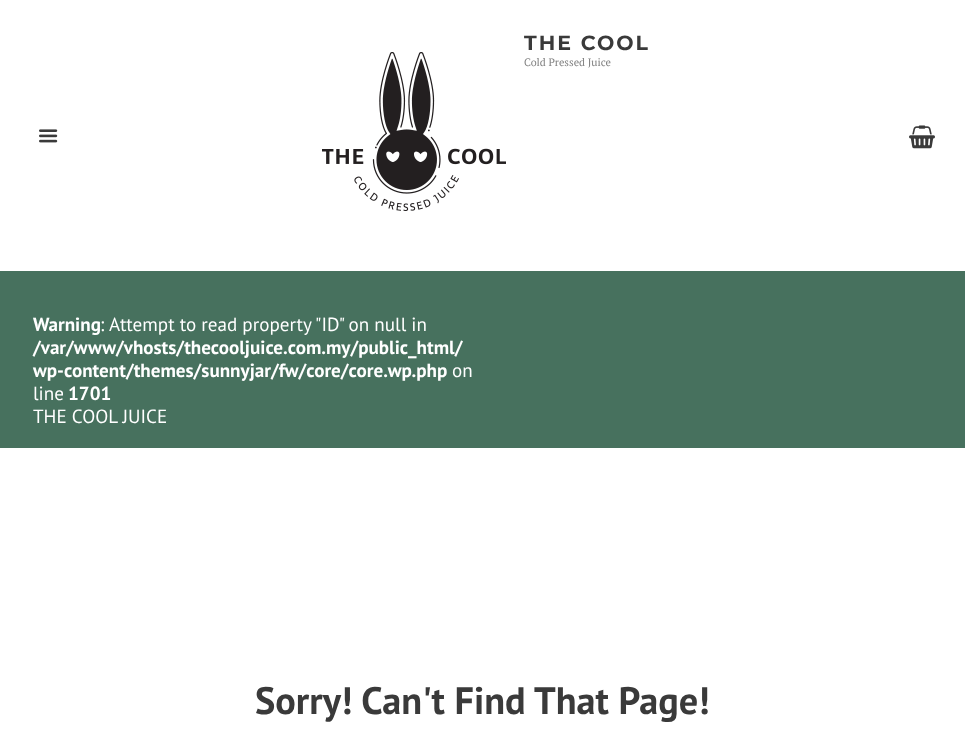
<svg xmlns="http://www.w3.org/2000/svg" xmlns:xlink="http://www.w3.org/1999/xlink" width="965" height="732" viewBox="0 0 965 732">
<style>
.cls-1{font:bold 20.5px Montserrat;letter-spacing:2px;fill:#3a3a3a}
.cls-2{font:10.75px PT Serif;fill:#828282}
.cls-3{font:bold 19.1px PT Sans;fill:#ffffff}
.cls-4{font:19.1px PT Sans;fill:#ffffff}
.cls-5{font:bold 38.25px PT Sans;fill:#3a3a3a}
</style>
<rect width="100%" height="100%" fill="#ffffff"/>
<image xlink:href="image0.png" x="322" y="52" width="184" height="159"/>
<image xlink:href="image1.png" x="39" y="129" width="19" height="14"/>
<image xlink:href="image2.png" x="909" y="125" width="26" height="24"/>
<rect fill="#47715e" x="0" y="271" width="965" height="177"/>
<text class="cls-1" x="524" y="50">THE COOL</text>
<text class="cls-2" x="524" y="66">Cold Pressed Juice</text>
<text class="cls-3" x="33" y="331">Warning</text>
<text class="cls-4" x="100" y="331">:</text>
<text class="cls-4" x="109" y="331">Attempt to read property "ID" on null in</text>
<text class="cls-3"><tspan x="33" y="354">/var/www/vhosts/thecooljuice.com.my/public_html/</tspan><tspan x="33" y="377">wp-content/themes/sunnyjar/fw/core/core.wp.php</tspan></text>
<text class="cls-4" x="452" y="377">on</text>
<text class="cls-4" x="33" y="400">line</text>
<text class="cls-3" x="68" y="400">1701</text>
<text class="cls-4" x="33" y="423">THE COOL JUICE</text>
<text class="cls-5" x="255" y="714">Sorry! Can't Find That Page!</text>
</svg>
